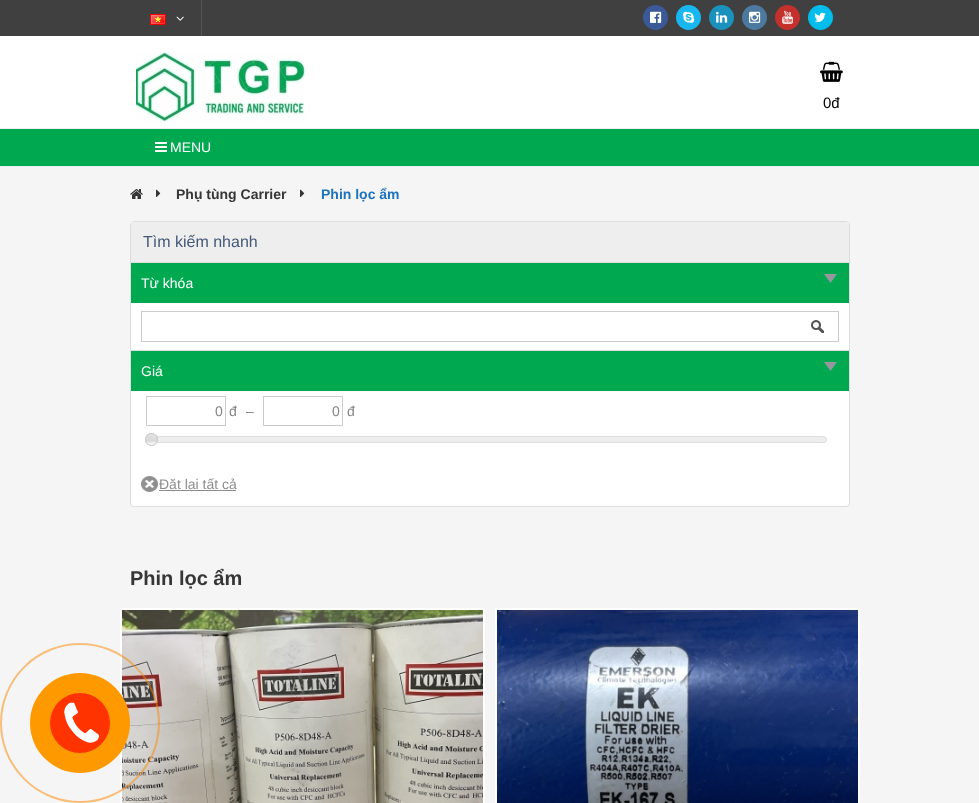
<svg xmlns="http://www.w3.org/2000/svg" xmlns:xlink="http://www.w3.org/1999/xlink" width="979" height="803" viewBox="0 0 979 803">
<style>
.cls-1{font:15px Liberation Sans;fill:#000000}
.cls-2{font:14px Liberation Sans;fill:#ffffff}
.cls-3{font:bold 14px Liberation Sans;fill:#363636}
.cls-4{font:bold 14px Liberation Sans;fill:#1e73be}
.cls-5{font:16px Liberation Sans;fill:#445878}
.cls-6{font:14px Liberation Sans;fill:#848484}
.cls-7{font:14px Liberation Sans;fill:#8e8e8e}
.cls-8{font:bold 20px Liberation Sans;fill:#363636}
</style>
<defs>
<clipPath id="clip1"><rect x="145" y="433" width="13" height="13" rx="6.5"/></clipPath>
<linearGradient id="g1" gradientUnits="userSpaceOnUse" x1="152" y1="434" x2="152" y2="445"><stop offset="0" stop-color="#e2e2e2"/><stop offset="0.5" stop-color="#dbdbdb"/><stop offset="0.51" stop-color="#d1d1d1"/><stop offset="1" stop-color="#fefefe"/></linearGradient>
</defs>
<rect width="100%" height="100%" fill="#f5f5f5"/>
<rect fill="#ffffff" x="0" y="36" width="979" height="92"/>
<rect fill="#404040" x="0" y="0" width="979" height="36"/>
<rect fill="#535353" x="201" y="0" width="1" height="36"/>
<image xlink:href="image0.png" x="150" y="14" width="16" height="11"/>
<image xlink:href="image1.png" x="176" y="16" width="8" height="5"/>
<circle fill="#3b5998" cx="655.5" cy="17.5" r="12.5"/>
<image xlink:href="image2.png" x="650" y="11" width="12" height="12"/>
<circle fill="#18b7f1" cx="688.5" cy="17.5" r="12.5"/>
<image xlink:href="image3.png" x="683" y="11" width="12" height="12"/>
<circle fill="#1b92bd" cx="721.5" cy="17.5" r="12.5"/>
<image xlink:href="image4.png" x="716" y="11" width="12" height="12"/>
<circle fill="#4c799f" cx="754.5" cy="17.5" r="12.5"/>
<image xlink:href="image5.png" x="749" y="11" width="12" height="12"/>
<circle fill="#c4302b" cx="787.5" cy="17.5" r="12.5"/>
<image xlink:href="image6.png" x="782" y="10" width="11" height="14"/>
<circle fill="#00bdec" cx="820.5" cy="17.5" r="12.5"/>
<image xlink:href="image7.png" x="814" y="12" width="12" height="10"/>
<image xlink:href="image8.png" x="136" y="52" width="169" height="70"/>
<image xlink:href="image9.png" x="820" y="61" width="23" height="21"/>
<rect fill="#00a950" x="0" y="129" width="979" height="37"/>
<rect fill="#eaeff6" x="0" y="128" width="979" height="1"/>
<rect fill="#eaeff6" x="0" y="166" width="979" height="1"/>
<image xlink:href="image10.png" x="155" y="142" width="12" height="10"/>
<image xlink:href="image11.png" x="130" y="189" width="13" height="10"/>
<image xlink:href="image12.png" x="156" y="189" width="5" height="8"/>
<image xlink:href="image12.png" x="300" y="189" width="5" height="8"/>
<rect fill="#ffffff" stroke="#dddddd" x="130.5" y="221.5" width="719" height="285" rx="3.5"/>
<rect fill="#eeeeee" x="131" y="222" width="718" height="40"/>
<rect fill="#dddddd" x="131" y="262" width="718" height="1"/>
<rect fill="#00a950" x="131" y="263" width="718" height="40"/>
<image xlink:href="image13.png" x="824" y="274" width="13" height="9"/>
<image xlink:href="image14.png" x="811" y="320" width="13" height="13"/>
<rect fill="none" stroke="#cccccc" x="141.5" y="311.5" width="697" height="30"/>
<rect fill="#00a950" x="131" y="351" width="718" height="40"/>
<rect fill="#dbdee1" x="131" y="350" width="718" height="1"/>
<image xlink:href="image13.png" x="824" y="362" width="13" height="9"/>
<rect fill="none" stroke="#cccccc" x="146.5" y="396.5" width="79" height="29"/>
<rect fill="none" stroke="#cccccc" x="263.5" y="396.5" width="79" height="29"/>
<rect fill="#eeeeee" stroke="#dddddd" x="153.5" y="436.5" width="673" height="6" rx="3"/>
<circle fill="none" stroke="#cccccc" cx="151.5" cy="439.5" r="6"/>
<g clip-path="url(#clip1)">
<rect fill="url(#g1)" x="145" y="434" width="13" height="11"/>
</g>
<circle fill="none" stroke="#cccccc" cx="151.5" cy="439.5" r="6"/>
<image xlink:href="image15.png" x="141" y="476" width="17" height="16"/>
<rect fill="#8e8e8e" x="159" y="490" width="77" height="1"/>
<rect fill="#ffffff" x="120" y="608" width="365" height="195"/>
<image xlink:href="image16.png" x="122" y="610" width="361" height="193"/>
<rect fill="#ffffff" x="495" y="608" width="365" height="195"/>
<image xlink:href="image17.png" x="497" y="610" width="361" height="193"/>
<circle fill="none" stroke="#fe8600" stroke-opacity="0.5" stroke-width="2" cx="80" cy="723" r="79"/>
<circle fill="#ff9900" cx="80" cy="723" r="50"/>
<circle fill="#ff3300" cx="80" cy="723" r="30"/>
<image xlink:href="image18.png" x="64" y="702" width="35" height="41"/>
<text class="cls-1" x="823" y="108">0đ</text>
<text class="cls-2" x="170" y="152">MENU</text>
<text class="cls-3" x="176" y="199">Phụ tùng Carrier</text>
<text class="cls-4" x="321" y="199">Phin lọc ẩm</text>
<text class="cls-5" x="143" y="247">Tìm kiếm nhanh</text>
<text class="cls-2" x="141" y="288">Từ khóa</text>
<text class="cls-2" x="141" y="376">Giá</text>
<text class="cls-6" x="215" y="416">0</text>
<text class="cls-6" x="229" y="416">đ</text>
<text class="cls-6" x="246" y="416">–</text>
<text class="cls-6" x="332" y="416">0</text>
<text class="cls-6" x="347" y="416">đ</text>
<text class="cls-7" x="159" y="489">Đặt lại tất cả</text>
<text class="cls-8" x="130" y="585">Phin lọc ẩm</text>
</svg>
